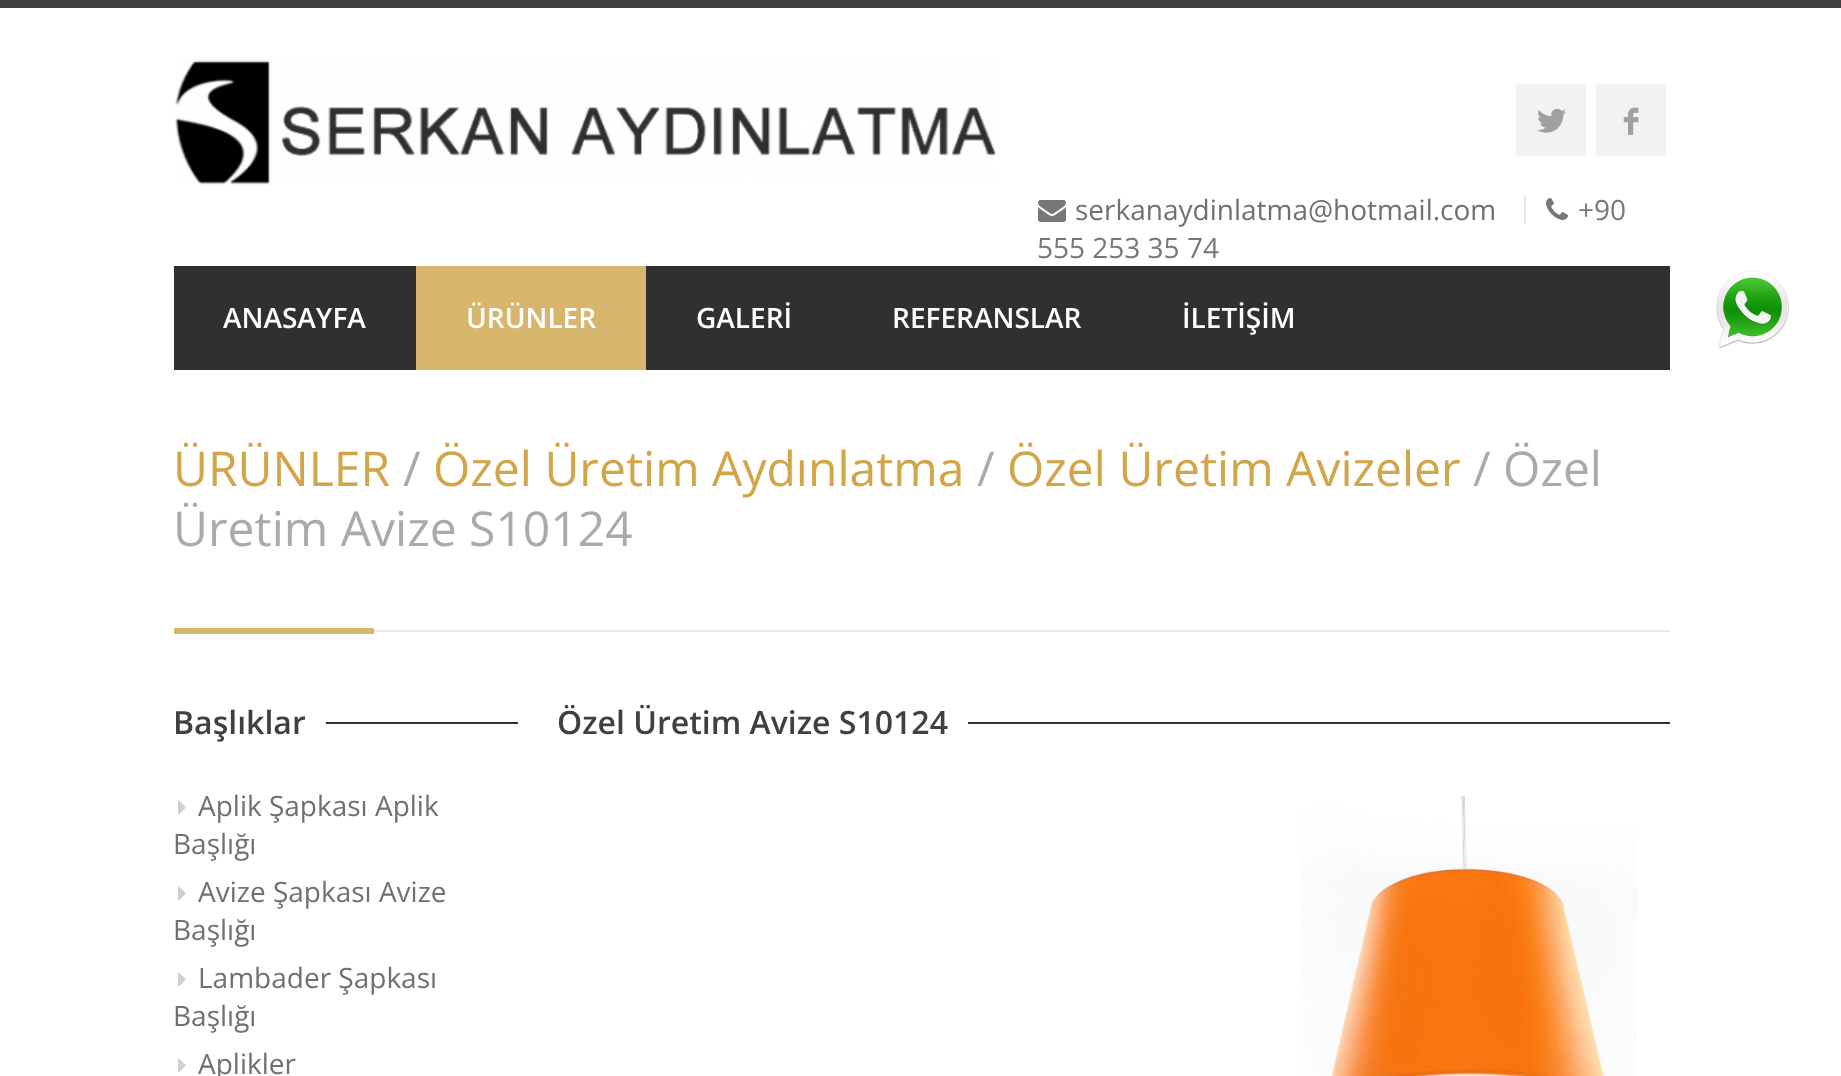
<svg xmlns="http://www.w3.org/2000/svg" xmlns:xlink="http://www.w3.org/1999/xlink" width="1841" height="1076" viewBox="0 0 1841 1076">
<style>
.cls-1{font:28px Open Sans;fill:#707070}
.cls-2{font:28px Open Sans;fill:#777777}
.cls-3{font:600 28px Open Sans;fill:#ffffff}
.cls-4{font:48px Open Sans;fill:#d1a548}
.cls-5{font:48px Open Sans;fill:#aaaaaa}
.cls-6{font:600 32px Open Sans;fill:#404040}
</style>
<rect width="100%" height="100%" fill="#ffffff"/>
<rect fill="#404040" x="0" y="0" width="1841" height="8"/>
<image xlink:href="image0.png" x="175" y="60" width="821" height="125"/>
<rect fill="#f2f2f2" x="1516" y="84" width="70" height="72"/>
<image xlink:href="image1.png" x="1537" y="108" width="29" height="25"/>
<rect fill="#f2f2f2" x="1596" y="84" width="70" height="72"/>
<image xlink:href="image2.png" x="1623" y="107" width="16" height="28"/>
<image xlink:href="image3.png" x="1038" y="200" width="28" height="22"/>
<rect fill="#e9e9e9" x="1524" y="196" width="2" height="28"/>
<image xlink:href="image4.png" x="1546" y="198" width="22" height="22"/>
<rect fill="#303030" x="174" y="266" width="1496" height="104"/>
<rect fill="#d7b56d" x="416" y="266" width="230" height="104"/>
<rect fill="#e9e9e9" x="374" y="630" width="1296" height="2"/>
<rect fill="#d7b56d" x="174" y="628" width="200" height="6"/>
<rect fill="#333333" x="326" y="722" width="192" height="2"/>
<image xlink:href="image5.png" x="178" y="800" width="8" height="15"/>
<image xlink:href="image5.png" x="178" y="886" width="8" height="15"/>
<image xlink:href="image5.png" x="178" y="972" width="8" height="15"/>
<image xlink:href="image5.png" x="178" y="1058" width="8" height="15"/>
<rect fill="#333333" x="968" y="722" width="702" height="2"/>
<image xlink:href="image6.png" x="1302" y="796" width="335" height="280"/>
<image xlink:href="image7.png" x="1716" y="271" width="73" height="78"/>
<text class="cls-1" x="1075" y="220">serkanaydinlatma@hotmail.com</text>
<text class="cls-2" x="1578" y="220">+90</text>
<text class="cls-2" x="1037" y="258">555 253 35 74</text>
<text class="cls-3" x="223" y="328">ANASAYFA</text>
<text class="cls-3" x="466" y="328">ÜRÜNLER</text>
<text class="cls-3" x="696" y="328">GALERİ</text>
<text class="cls-3" x="892" y="328">REFERANSLAR</text>
<text class="cls-3" x="1182" y="328">İLETİŞİM</text>
<text class="cls-4" x="173" y="486">ÜRÜNLER</text>
<text class="cls-5" x="403" y="486">/</text>
<text class="cls-4" x="433" y="486">Özel Üretim Aydınlatma</text>
<text class="cls-5" x="977" y="486">/</text>
<text class="cls-4" x="1007" y="486">Özel Üretim Avizeler</text>
<text class="cls-5" x="1473" y="486">/ Özel</text>
<text class="cls-5" x="173" y="546">Üretim Avize S10124</text>
<text class="cls-6" x="173" y="734">Başlıklar</text>
<text class="cls-1" x="198" y="816">Aplik Şapkası Aplik</text>
<text class="cls-1" x="173" y="854">Başlığı</text>
<text class="cls-1" x="198" y="902">Avize Şapkası Avize</text>
<text class="cls-1" x="173" y="940">Başlığı</text>
<text class="cls-1" x="198" y="988">Lambader Şapkası</text>
<text class="cls-1" x="173" y="1026">Başlığı</text>
<text class="cls-1" x="198" y="1074">Aplikler</text>
<text class="cls-6" x="557" y="734">Özel Üretim Avize S10124</text>
</svg>
